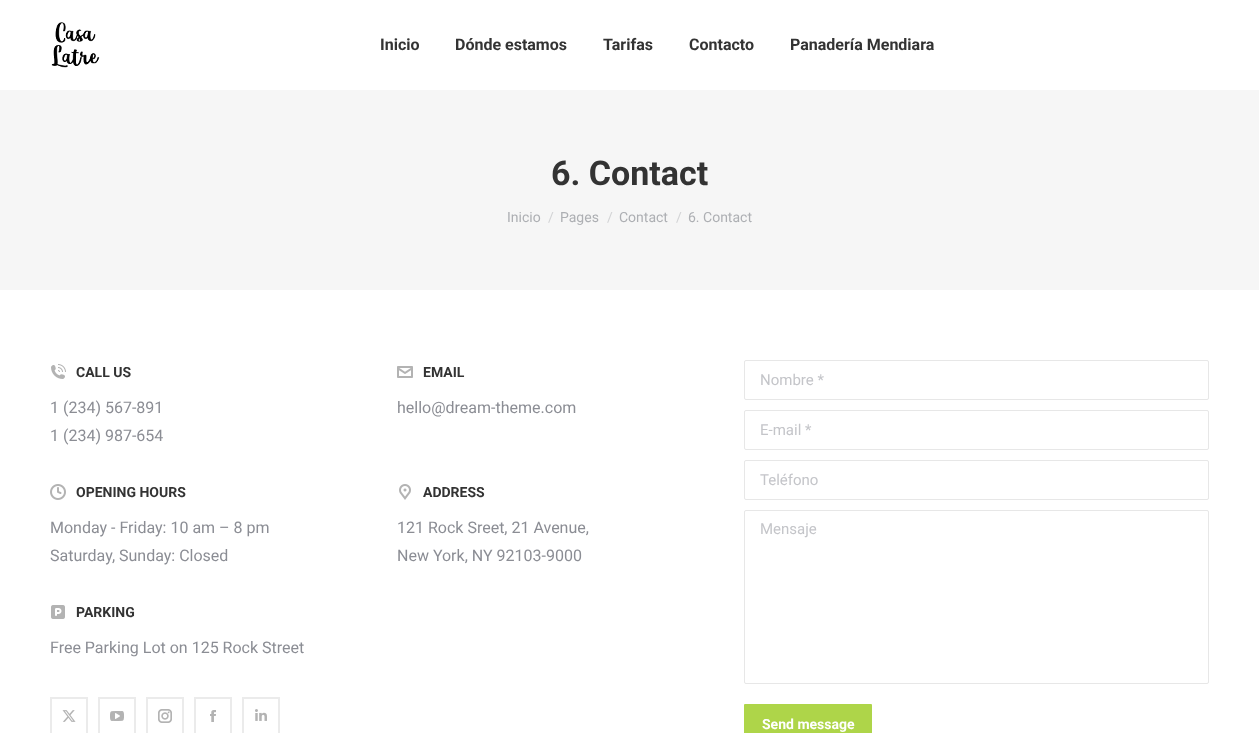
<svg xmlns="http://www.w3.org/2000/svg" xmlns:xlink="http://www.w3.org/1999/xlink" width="1259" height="733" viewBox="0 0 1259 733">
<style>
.cls-1{font:bold 16px Roboto;fill:#333333}
.cls-2{font:bold 34px Roboto;fill:#333333}
.cls-3{font:14px Roboto;fill:#adafb3}
.cls-4{font:14px Roboto;fill:#d2d3d5}
.cls-5{font:bold 14px Roboto;fill:#333333}
.cls-6{font:16px Roboto;fill:#8b8d94}
.cls-7{font:15px Roboto;fill:#c4c5c9}
.cls-8{font:bold 14px Roboto;fill:#ffffff}
</style>
<rect width="100%" height="100%" fill="#ffffff"/>
<image xlink:href="image0.png" x="51" y="22" width="49" height="46"/>
<rect fill="#f6f6f6" x="0" y="90" width="1259" height="200"/>
<image xlink:href="image1.png" x="51" y="364" width="15" height="15"/>
<image xlink:href="image2.png" x="397" y="366" width="16" height="12"/>
<image xlink:href="image3.png" x="50" y="484" width="16" height="16"/>
<image xlink:href="image4.png" x="399" y="484" width="12" height="16"/>
<image xlink:href="image5.png" x="51" y="605" width="14" height="14"/>
<rect fill="none" stroke="#ebebeb" stroke-width="2" x="51" y="698" width="36" height="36"/>
<image xlink:href="image6.png" x="62" y="710" width="14" height="12"/>
<rect fill="none" stroke="#ebebeb" stroke-width="2" x="99" y="698" width="36" height="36"/>
<image xlink:href="image7.png" x="110" y="711" width="14" height="10"/>
<rect fill="none" stroke="#ebebeb" stroke-width="2" x="147" y="698" width="36" height="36"/>
<image xlink:href="image8.png" x="158" y="709" width="14" height="14"/>
<rect fill="none" stroke="#ebebeb" stroke-width="2" x="195" y="698" width="36" height="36"/>
<image xlink:href="image9.png" x="210" y="710" width="6" height="12"/>
<rect fill="none" stroke="#ebebeb" stroke-width="2" x="243" y="698" width="36" height="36"/>
<image xlink:href="image10.png" x="255" y="709" width="12" height="12"/>
<rect fill="none" stroke="#e7e7e7" x="744.5" y="360.5" width="464" height="39" rx="1.5"/>
<rect fill="none" stroke="#e7e7e7" x="744.5" y="410.5" width="464" height="39" rx="1.5"/>
<rect fill="none" stroke="#e7e7e7" x="744.5" y="460.5" width="464" height="39" rx="1.5"/>
<rect fill="none" stroke="#e7e7e7" x="744.5" y="510.5" width="464" height="173" rx="1.5"/>
<rect fill="#aed549" x="744" y="704" width="128" height="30" rx="1"/>
<text class="cls-1" x="380" y="50">Inicio</text>
<text class="cls-1" x="455" y="50">Dónde estamos</text>
<text class="cls-1" x="603" y="50">Tarifas</text>
<text class="cls-1" x="689" y="50">Contacto</text>
<text class="cls-1" x="790" y="50">Panadería Mendiara</text>
<text class="cls-2" x="551" y="185">6. Contact</text>
<text class="cls-3" x="507" y="222">Inicio</text>
<text class="cls-4" x="548" y="222">/</text>
<text class="cls-3" x="560" y="222">Pages</text>
<text class="cls-4" x="607" y="222">/</text>
<text class="cls-3" x="619" y="222">Contact</text>
<text class="cls-4" x="676" y="222">/</text>
<text class="cls-3" x="688" y="222">6. Contact</text>
<text class="cls-5" x="76" y="377">CALL US</text>
<text class="cls-6"><tspan x="50" y="413">1 (234) 567-891</tspan><tspan x="50" y="441">1 (234) 987-654</tspan></text>
<text class="cls-5" x="423" y="377">EMAIL</text>
<text class="cls-6" x="397" y="413">hello@dream-theme.com</text>
<text class="cls-5" x="76" y="497">OPENING HOURS</text>
<text class="cls-6"><tspan x="50" y="533">Monday - Friday: 10 am – 8 pm</tspan><tspan x="50" y="561">Saturday, Sunday: Closed</tspan></text>
<text class="cls-5" x="423" y="497">ADDRESS</text>
<text class="cls-6"><tspan x="397" y="533">121 Rock Sreet, 21 Avenue,</tspan><tspan x="397" y="561">New York, NY 92103-9000</tspan></text>
<text class="cls-5" x="76" y="617">PARKING</text>
<text class="cls-6" x="50" y="653">Free Parking Lot on 125 Rock Street</text>
<text class="cls-7" x="760" y="385">Nombre *</text>
<text class="cls-7" x="760" y="435">E-mail *</text>
<text class="cls-7" x="760" y="485">Teléfono</text>
<text class="cls-7" x="760" y="534">Mensaje</text>
<text class="cls-8" x="762" y="729">Send message</text>
</svg>
